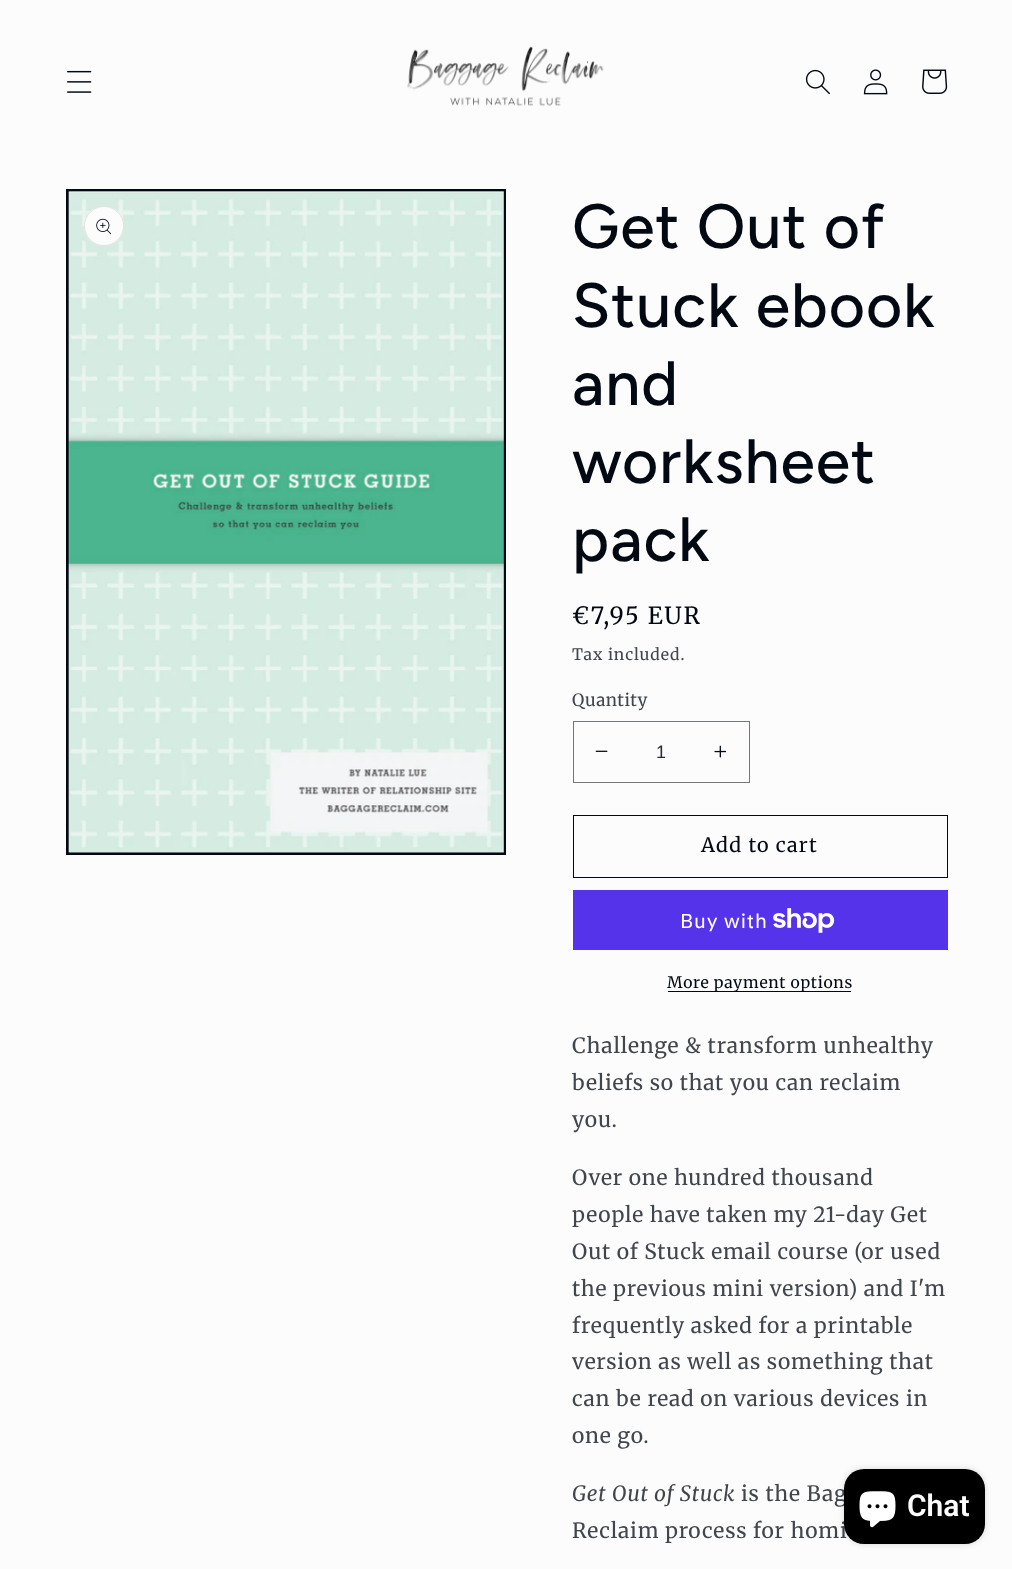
<svg xmlns="http://www.w3.org/2000/svg" xmlns:xlink="http://www.w3.org/1999/xlink" width="1012" height="1569" viewBox="0 0 1012 1569">
<style>
.cls-1{font:500 62.5px Figtree;letter-spacing:1px;fill:#020912}
.cls-2{font:23.5px Merriweather;letter-spacing:1.75px;fill:#020912}
.cls-3{font:15.75px Merriweather;letter-spacing:0.9px;fill:#41464d}
.cls-4{font:17px Merriweather;letter-spacing:0.5px;fill:#41464d}
.cls-5{font:18px Liberation Sans;fill:#282d35}
.cls-6{font:19.75px Merriweather;letter-spacing:1.25px;fill:#020912}
.cls-7{font:20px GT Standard;letter-spacing:0.8px;fill:#ffffff}
.cls-8{font:15.75px Merriweather;letter-spacing:0.7px;fill:#020912}
.cls-9{font:21px Merriweather;letter-spacing:0.8px;fill:#41464d}
.cls-10{font:italic 21px Merriweather;letter-spacing:0.8px;fill:#41464d}
.cls-11{font:600 30px Roboto;fill:#ffffff}
</style>
<rect width="100%" height="100%" fill="#fcfcfc"/>
<image xlink:href="image0.png" x="67" y="70" width="25" height="23"/>
<image xlink:href="image1.png" x="407" y="46" width="197" height="60"/>
<image xlink:href="image2.png" x="805" y="69" width="25" height="26"/>
<image xlink:href="image3.png" x="863" y="69" width="25" height="26"/>
<image xlink:href="image4.png" x="922" y="69" width="26" height="25"/>
<rect fill="none" stroke="#020912" stroke-width="3" x="67.5" y="190.5" width="437" height="663"/>
<image xlink:href="image5.png" x="68" y="191" width="436" height="662"/>
<circle fill="#fcfcfc" cx="104" cy="226" r="20"/>
<circle fill="none" stroke="#020912" stroke-opacity="0.1" cx="104" cy="226" r="19.5"/>
<image xlink:href="image6.png" x="96" y="218" width="15" height="17"/>
<image xlink:href="image7.png" x="595" y="750" width="13" height="2"/>
<image xlink:href="image8.png" x="714" y="745" width="12" height="13"/>
<rect fill="none" stroke="#72767b" x="573.5" y="721.5" width="176" height="61"/>
<rect fill="none" stroke="#020912" x="573.5" y="815.5" width="374" height="62"/>
<rect fill="#5433eb" x="573" y="890" width="375" height="60"/>
<image xlink:href="image9.png" x="773" y="908" width="62" height="25"/>
<rect fill="#020912" x="668" y="991" width="183" height="1"/>
<rect fill="#000000" fill-opacity="0.15" filter="blur(3px)" x="844" y="1469" width="141" height="75" rx="20"/>
<text class="cls-1"><tspan x="572" y="248">Get Out of</tspan><tspan x="572" y="327">Stuck ebook</tspan><tspan x="572" y="405">and</tspan><tspan x="572" y="483">worksheet</tspan><tspan x="572" y="561">pack</tspan></text>
<text class="cls-2" x="572" y="624">€7,95 EUR</text>
<text class="cls-3" x="572" y="660">Tax included.</text>
<text class="cls-4" x="572" y="706">Quantity</text>
<text class="cls-5" x="656" y="758">1</text>
<text class="cls-6" x="701" y="852">Add to cart</text>
<text class="cls-7" x="680" y="928">Buy with</text>
<text class="cls-8" x="667" y="988">More payment options</text>
<text class="cls-9"><tspan x="572" y="1053">Challenge &amp; transform unhealthy</tspan><tspan x="572" y="1090">beliefs so that you can reclaim</tspan><tspan x="572" y="1127">you.</tspan></text>
<text class="cls-9"><tspan x="572" y="1185">Over one hundred thousand</tspan><tspan x="572" y="1222">people have taken my 21-day Get</tspan><tspan x="572" y="1259">Out of Stuck email course (or used</tspan><tspan x="572" y="1296">the previous mini version) and I'm</tspan><tspan x="572" y="1333">frequently asked for a printable</tspan><tspan x="572" y="1369">version as well as something that</tspan><tspan x="572" y="1406">can be read on various devices in</tspan><tspan x="572" y="1443">one go.</tspan></text>
<text class="cls-10" x="572" y="1501">Get Out of Stuck</text>
<text class="cls-9" x="741" y="1501">is the Bag</text>
<text class="cls-9" x="572" y="1538">Reclaim process for homi</text>
<rect fill="#000000" x="844" y="1469" width="141" height="75" rx="20"/>
<image xlink:href="image10.png" x="859" y="1491" width="37" height="37"/>
<text class="cls-11" x="907" y="1516">Chat</text>
</svg>
